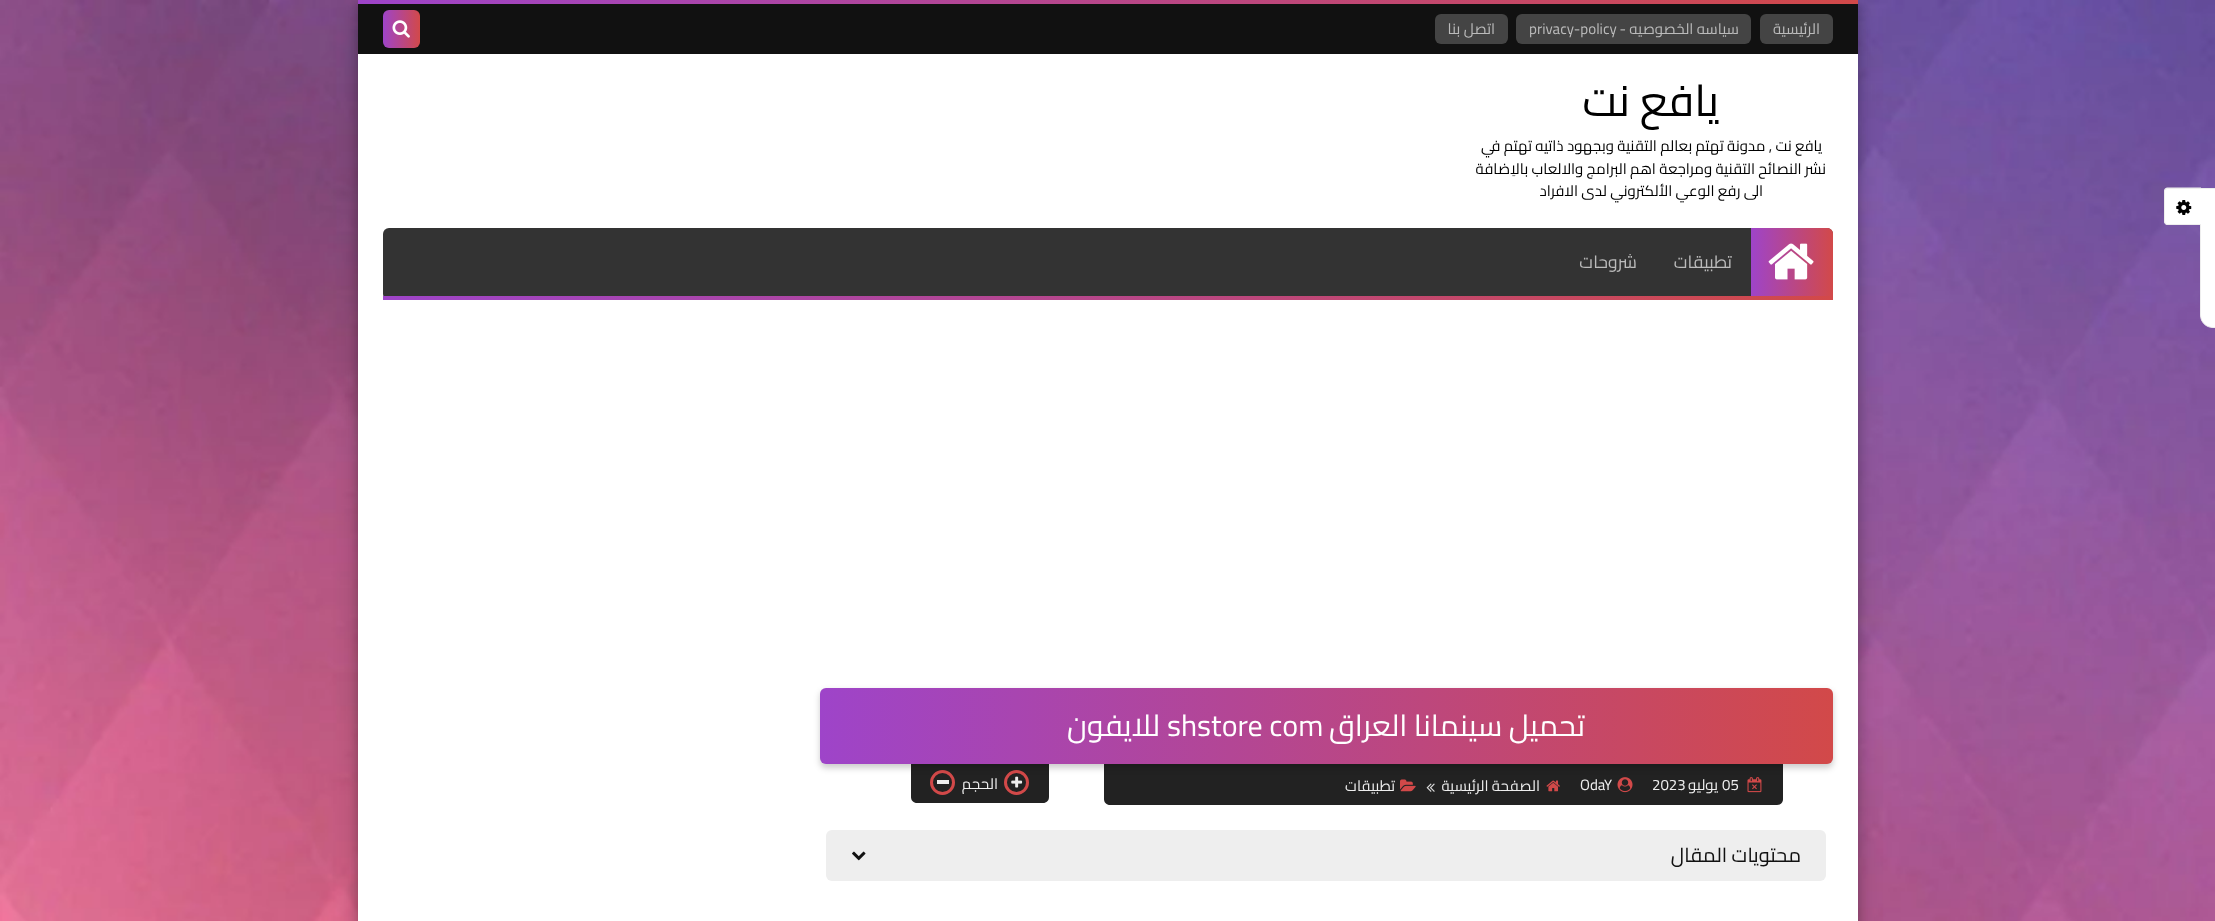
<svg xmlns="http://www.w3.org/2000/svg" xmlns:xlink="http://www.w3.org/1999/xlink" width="2215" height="921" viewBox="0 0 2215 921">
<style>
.cls-1{font:15px Cairo;direction:rtl;fill:#bbbbbb}
.cls-2{font:15px Cairo;fill:#bbbbbb}
.cls-3{font:44px Cairo;direction:rtl;fill:#000000}
.cls-4{font:15px Cairo;direction:rtl;fill:#000000}
.cls-5{font:17.5px Cairo;direction:rtl;fill:#bbbbbb}
.cls-6{font:30px Cairo;direction:rtl;fill:#ffffff}
.cls-7{font:30px Cairo;fill:#ffffff}
.cls-8{font:15px Cairo;fill:#eeeeee}
.cls-9{font:15px Cairo;direction:rtl;fill:#eeeeee}
.cls-10{font:20px Cairo;direction:rtl;fill:#111111}
</style>
<defs>
<linearGradient id="g1" gradientUnits="userSpaceOnUse" x1="1858" y1="1.9" x2="358" y2="1.9"><stop offset="0" stop-color="#d24949"/><stop offset="1" stop-color="#9e44c9"/></linearGradient>
<linearGradient id="g2" gradientUnits="userSpaceOnUse" x1="420" y1="29" x2="383" y2="29"><stop offset="0" stop-color="#d24949"/><stop offset="1" stop-color="#9e44c9"/></linearGradient>
<linearGradient id="g3" gradientUnits="userSpaceOnUse" x1="1833" y1="262" x2="1751" y2="262"><stop offset="0" stop-color="#d24949"/><stop offset="1" stop-color="#9e44c9"/></linearGradient>
<linearGradient id="g4" gradientUnits="userSpaceOnUse" x1="1833" y1="298" x2="383" y2="298"><stop offset="0" stop-color="#d24949"/><stop offset="1" stop-color="#9e44c9"/></linearGradient>
<linearGradient id="g5" gradientUnits="userSpaceOnUse" x1="1833" y1="726" x2="820" y2="726"><stop offset="0" stop-color="#d24949"/><stop offset="1" stop-color="#9e44c9"/></linearGradient>
</defs>
<rect width="100%" height="100%" fill="#ffffff"/>
<image xlink:href="image0.png" x="0" y="0" width="2215" height="921"/>
<path fill="#ffffff" stroke="#eeeeee" d="M2200.5 188.5H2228.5V327.5H2213C2206 327.5 2200.5 322 2200.5 315Z"/>
<path fill="#ffffff" d="M2168 188H2201V225H2168C2166 225 2164 223 2164 221V192C2164 190 2166 188 2168 188Z"/>
<path fill="#eeeeee" fill-rule="evenodd" d="M2167.5 187.5H2201V225H2167.5C2165.5 225 2164 223.5 2164 221V191C2164 189 2165.5 187.5 2167.5 187.5ZM2167.5 189H2201V224H2167.5C2166 224 2165 222.5 2165 221V191C2165 190 2166 189 2167.5 189Z"/>
<image xlink:href="image1.png" x="2176" y="200" width="16" height="15"/>
<rect fill="#000000" fill-opacity="0.19" filter="blur(12.5px)" x="358" y="8" width="1500" height="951"/>
<rect fill="#000000" fill-opacity="0.2" filter="blur(5px)" x="358" y="5" width="1500" height="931"/>
<rect fill="#ffffff" x="358" y="54" width="1500" height="867"/>
<rect fill="url(#g1)" x="358" y="0" width="1500" height="4"/>
<rect fill="#111111" x="358" y="4" width="1500" height="50"/>
<rect fill="#444444" x="1760" y="14" width="73" height="30" rx="6"/>
<rect fill="#444444" x="1516" y="14" width="235" height="30" rx="6"/>
<rect fill="#444444" x="1435" y="14" width="73" height="30" rx="6"/>
<rect fill="url(#g2)" x="383" y="10" width="37" height="38" rx="6"/>
<image xlink:href="image2.png" x="392" y="20" width="18" height="18"/>
<rect fill="#333333" x="383" y="228" width="1450" height="72" rx="6"/>
<path fill="url(#g3)" d="M1751 228H1827C1830.5 228 1833 230.5 1833 234V296H1751Z"/>
<image xlink:href="image3.png" x="1768" y="243" width="46" height="37"/>
<rect fill="url(#g4)" x="383" y="296" width="1450" height="4"/>
<path fill="#222222" d="M1104 764H1783V799C1783 802.5 1780.5 805 1777 805H1110C1106.5 805 1104 802.5 1104 799Z"/>
<image xlink:href="image4.png" x="1747" y="777" width="15" height="16"/>
<image xlink:href="image5.png" x="1617" y="777" width="16" height="16"/>
<path fill="#222222" d="M911 764H1049V797C1049 800.5 1046.5 803 1043 803H917C913.5 803 911 800.5 911 797Z"/>
<circle fill="none" stroke="#d24949" stroke-width="3" cx="1016.5" cy="782.5" r="11"/>
<image xlink:href="image9.png" x="1011" y="776" width="12" height="12"/>
<circle fill="none" stroke="#d24949" stroke-width="3" cx="942.5" cy="782.5" r="11"/>
<rect fill="#000000" fill-opacity="0.2" filter="blur(3px)" x="820" y="691" width="1013" height="77" rx="6"/>
<rect fill="url(#g5)" x="820" y="688" width="1013" height="76" rx="6"/>
<image xlink:href="image6.png" x="1546" y="780" width="14" height="12"/>
<image xlink:href="image7.png" x="1426" y="783" width="9" height="9"/>
<image xlink:href="image8.png" x="1400" y="779" width="16" height="13"/>
<rect fill="#eeeeee" x="937" y="780" width="12" height="4"/>
<rect fill="#eeeeee" x="826" y="830" width="1000" height="51" rx="6"/>
<image xlink:href="image10.png" x="852" y="851" width="14" height="10"/>
<text class="cls-1" x="1820" y="34">الرئيسية</text>
<text class="cls-1" x="1739" y="34">سياسه الخصوصيه -</text>
<text class="cls-2" x="1529" y="34">privacy-policy</text>
<text class="cls-1" x="1495" y="34">اتصل بنا</text>
<text class="cls-3" x="1719" y="116">يافع نت</text>
<text class="cls-4" x="1822" y="151">يافع نت , مدونة تهتم بعالم التقنية وبجهود ذاتيه تهتم في</text>
<text class="cls-4" x="1826" y="174">نشر النصائح التقنية ومراجعة اهم البرامج والالعاب بالاِضافة</text>
<text class="cls-4" x="1763" y="196">الى رفع الوعي الألكتروني لدى الافراد</text>
<text class="cls-5" x="1732" y="268">تطبيقات</text>
<text class="cls-5" x="1637" y="268">شروحات</text>
<text class="cls-6" x="1585" y="736">تحميل سينمانا العراق</text>
<text class="cls-7" x="1167" y="736">shstore com</text>
<text class="cls-6" x="1160" y="736">للايفون</text>
<text class="cls-8" x="1722" y="790">05</text>
<text class="cls-9" x="1718" y="790">يوليو</text>
<text class="cls-8" x="1652" y="790">2023</text>
<text class="cls-8" x="1580" y="790">OdaY</text>
<text class="cls-9" x="1540" y="791">الصفحة الرئيسية</text>
<text class="cls-9" x="1395" y="791">تطبيقات</text>
<text class="cls-9" x="998" y="789">الحجم</text>
<text class="cls-10" x="1801" y="862">محتويات المقال</text>
</svg>
